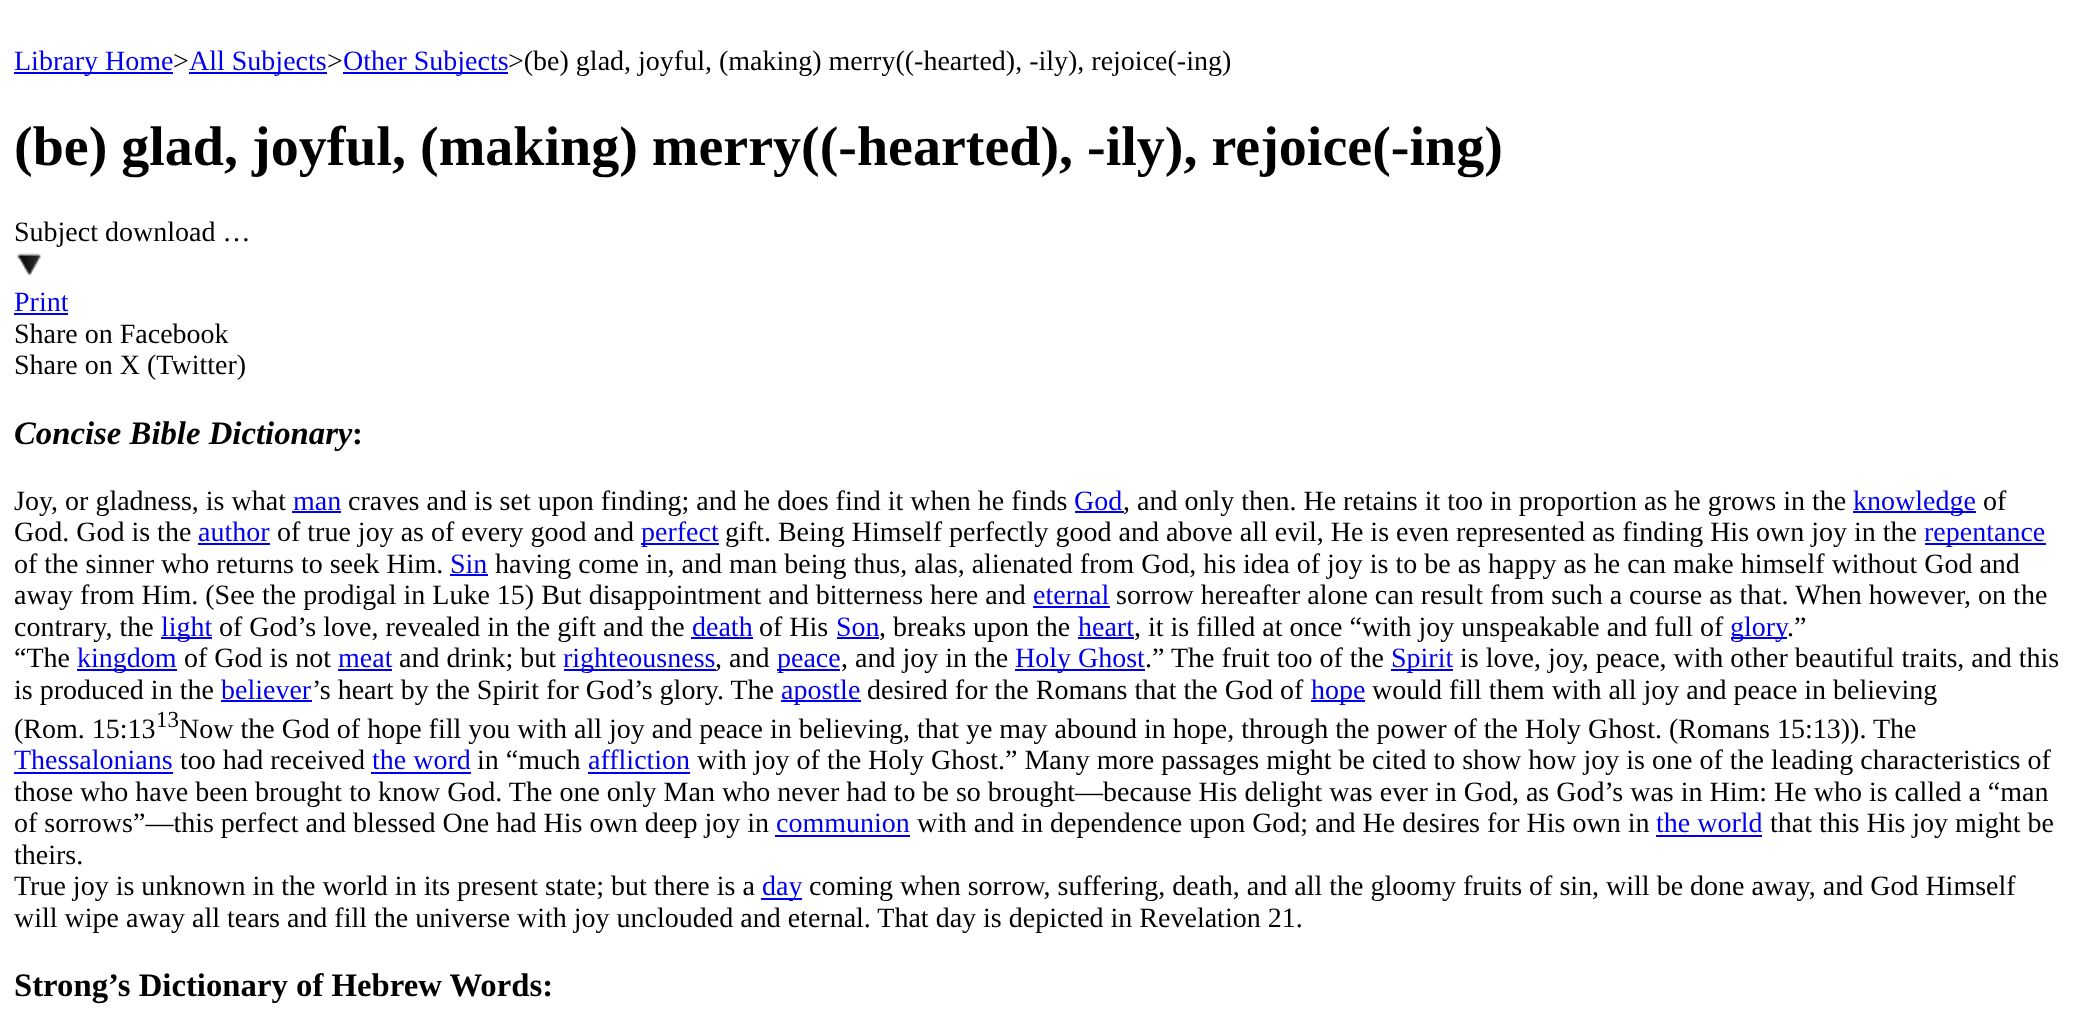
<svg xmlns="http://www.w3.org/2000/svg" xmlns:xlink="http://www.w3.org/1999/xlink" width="2079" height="1020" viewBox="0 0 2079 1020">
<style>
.cls-1{font:28px Liberation Serif;fill:#0000ee}
.cls-2{font:28px Liberation Serif;fill:#000000}
.cls-3{font:bold 56px Liberation Serif;fill:#000000}
.cls-4{font:italic bold 32.75px Liberation Serif;fill:#000000}
.cls-5{font:bold 32.75px Liberation Serif;fill:#000000}
.cls-6{font:23px Liberation Serif;fill:#000000}
</style>
<rect width="100%" height="100%" fill="#ffffff"/>
<rect fill="#0000ee" x="14" y="72" width="159" height="2"/>
<rect fill="#0000ee" x="189" y="72" width="138" height="2"/>
<rect fill="#0000ee" x="343" y="72" width="165" height="2"/>
<image xlink:href="image0.png" x="17" y="253" width="24" height="23"/>
<rect fill="#0000ee" x="14" y="313" width="54" height="2"/>
<rect fill="#0000ee" x="292" y="511" width="49" height="2"/>
<rect fill="#0000ee" x="1075" y="511" width="49" height="2"/>
<rect fill="#0000ee" x="1853" y="511" width="123" height="2"/>
<rect fill="#0000ee" x="198" y="543" width="72" height="2"/>
<rect fill="#0000ee" x="641" y="543" width="78" height="2"/>
<rect fill="#0000ee" x="1925" y="543" width="121" height="2"/>
<rect fill="#0000ee" x="450" y="574" width="38" height="2"/>
<rect fill="#0000ee" x="1033" y="606" width="77" height="2"/>
<rect fill="#0000ee" x="161" y="637" width="51" height="2"/>
<rect fill="#0000ee" x="691" y="637" width="62" height="2"/>
<rect fill="#0000ee" x="837" y="637" width="42" height="2"/>
<rect fill="#0000ee" x="1078" y="637" width="56" height="2"/>
<rect fill="#0000ee" x="1731" y="637" width="56" height="2"/>
<rect fill="#0000ee" x="77" y="669" width="100" height="2"/>
<rect fill="#0000ee" x="338" y="669" width="54" height="2"/>
<rect fill="#0000ee" x="564" y="669" width="152" height="2"/>
<rect fill="#0000ee" x="777" y="669" width="63" height="2"/>
<rect fill="#0000ee" x="1015" y="669" width="130" height="2"/>
<rect fill="#0000ee" x="1391" y="669" width="62" height="2"/>
<rect fill="#0000ee" x="221" y="700" width="91" height="2"/>
<rect fill="#0000ee" x="781" y="700" width="80" height="2"/>
<rect fill="#0000ee" x="1311" y="700" width="54" height="2"/>
<rect fill="#0000ee" x="14" y="772" width="159" height="2"/>
<rect fill="#0000ee" x="371" y="772" width="100" height="2"/>
<rect fill="#0000ee" x="588" y="772" width="102" height="2"/>
<rect fill="#0000ee" x="775" y="835" width="135" height="2"/>
<rect fill="#0000ee" x="1656" y="835" width="106" height="2"/>
<rect fill="#0000ee" x="761" y="898" width="41" height="2"/>
<text class="cls-1" x="14" y="70">Library Home</text>
<text class="cls-2" x="173" y="70">&gt;</text>
<text class="cls-1" x="189" y="70">All Subjects</text>
<text class="cls-2" x="327" y="70">&gt;</text>
<text class="cls-1" x="343" y="70">Other Subjects</text>
<text class="cls-2" x="508" y="70">&gt;(be) glad, joyful, (making) merry((-hearted), -ily), rejoice(-ing)</text>
<text class="cls-3" x="14" y="165">(be) glad, joyful, (making) merry((-hearted), -ily), rejoice(-ing)</text>
<text class="cls-2" x="14" y="241">Subject download …</text>
<text class="cls-1" x="14" y="311">Print</text>
<text class="cls-2"><tspan x="14" y="343">Share on Facebook</tspan><tspan x="14" y="374">Share on X (Twitter)</tspan></text>
<text class="cls-4" x="14" y="444">Concise Bible Dictionary</text>
<text class="cls-5" x="352" y="444">:</text>
<text class="cls-2" x="14" y="510">Joy, or gladness, is what</text>
<text class="cls-1" x="293" y="510">man</text>
<text class="cls-2" x="348" y="510">craves and is set upon finding; and he does find it when he finds</text>
<text class="cls-1" x="1074" y="510">God</text>
<text class="cls-2" x="1123" y="510">, and only then. He retains it too in proportion as he grows in the</text>
<text class="cls-1" x="1853" y="510">knowledge</text>
<text class="cls-2" x="1983" y="510">of</text>
<text class="cls-2" x="14" y="541">God. God is the</text>
<text class="cls-1" x="198" y="541">author</text>
<text class="cls-2" x="277" y="541">of true joy as of every good and</text>
<text class="cls-1" x="641" y="541">perfect</text>
<text class="cls-2" x="725" y="541">gift. Being Himself perfectly good and above all evil, He is even represented as finding His own joy in the</text>
<text class="cls-1" x="1924" y="541">repentance</text>
<text class="cls-2" x="14" y="573">of the sinner who returns to seek Him.</text>
<text class="cls-1" x="450" y="573">Sin</text>
<text class="cls-2" x="495" y="573">having come in, and man being thus, alas, alienated from God, his idea of joy is to be as happy as he can make himself without God and</text>
<text class="cls-2" x="14" y="604">away from Him. (See the prodigal in Luke 15) But disappointment and bitterness here and</text>
<text class="cls-1" x="1033" y="604">eternal</text>
<text class="cls-2" x="1116" y="604">sorrow hereafter alone can result from such a course as that. When however, on the</text>
<text class="cls-2" x="14" y="636">contrary, the</text>
<text class="cls-1" x="161" y="636">light</text>
<text class="cls-2" x="219" y="636">of God’s love, revealed in the gift and the</text>
<text class="cls-1" x="692" y="636">death</text>
<text class="cls-2" x="759" y="636">of His</text>
<text class="cls-1" x="836" y="636">Son</text>
<text class="cls-2" x="879" y="636">, breaks upon the</text>
<text class="cls-1" x="1078" y="636">heart</text>
<text class="cls-2" x="1134" y="636">, it is filled at once “with joy unspeakable and full of</text>
<text class="cls-1" x="1730" y="636">glory</text>
<text class="cls-2" x="1787" y="636">.”</text>
<text class="cls-2" x="14" y="667">“The</text>
<text class="cls-1" x="77" y="667">kingdom</text>
<text class="cls-2" x="184" y="667">of God is not</text>
<text class="cls-1" x="338" y="667">meat</text>
<text class="cls-2" x="399" y="667">and drink; but</text>
<text class="cls-1" x="563" y="667">righteousness</text>
<text class="cls-2" x="715" y="667">, and</text>
<text class="cls-1" x="777" y="667">peace</text>
<text class="cls-2" x="841" y="667">, and joy in the</text>
<text class="cls-1" x="1015" y="667">Holy Ghost</text>
<text class="cls-2" x="1145" y="667">.” The fruit too of the</text>
<text class="cls-1" x="1391" y="667">Spirit</text>
<text class="cls-2" x="1460" y="667">is love, joy, peace, with other beautiful traits, and this</text>
<text class="cls-2" x="14" y="699">is produced in the</text>
<text class="cls-1" x="221" y="699">believer</text>
<text class="cls-2" x="312" y="699">’s heart by the Spirit for God’s glory. The</text>
<text class="cls-1" x="781" y="699">apostle</text>
<text class="cls-2" x="867" y="699">desired for the Romans that the God of</text>
<text class="cls-1" x="1311" y="699">hope</text>
<text class="cls-2" x="1372" y="699">would fill them with all joy and peace in believing</text>
<text class="cls-2" x="14" y="738">(Rom. 15:13</text>
<text class="cls-6" x="156" y="727">13</text>
<text class="cls-2" x="179" y="738">Now the God of hope fill you with all joy and peace in believing, that ye may abound in hope, through the power of the Holy Ghost. (Romans 15:13)). The</text>
<text class="cls-1" x="14" y="769">Thessalonians</text>
<text class="cls-2" x="180" y="769">too had received</text>
<text class="cls-1" x="372" y="769">the word</text>
<text class="cls-2" x="477" y="769">in “much</text>
<text class="cls-1" x="588" y="769">affliction</text>
<text class="cls-2" x="697" y="769">with joy of the Holy Ghost.” Many more passages might be cited to show how joy is one of the leading characteristics of</text>
<text class="cls-2"><tspan x="14" y="801">those who have been brought to know God. The one only Man who never had to be so brought—because His delight was ever in God, as God’s was in Him: He who is called a “man</tspan><tspan x="14" y="832">of sorrows”—this perfect and blessed One had His own deep joy in</tspan></text>
<text class="cls-1" x="776" y="832">communion</text>
<text class="cls-2" x="917" y="832">with and in dependence upon God; and He desires for His own in</text>
<text class="cls-1" x="1656" y="832">the world</text>
<text class="cls-2" x="1770" y="832">that this His joy might be</text>
<text class="cls-2"><tspan x="14" y="864">theirs.</tspan><tspan x="14" y="895">True joy is unknown in the world in its present state; but there is a</tspan></text>
<text class="cls-1" x="762" y="895">day</text>
<text class="cls-2" x="809" y="895">coming when sorrow, suffering, death, and all the gloomy fruits of sin, will be done away, and God Himself</text>
<text class="cls-2" x="14" y="927">will wipe away all tears and fill the universe with joy unclouded and eternal. That day is depicted in Revelation 21.</text>
<text class="cls-5" x="14" y="996">Strong’s Dictionary of Hebrew Words:</text>
</svg>
